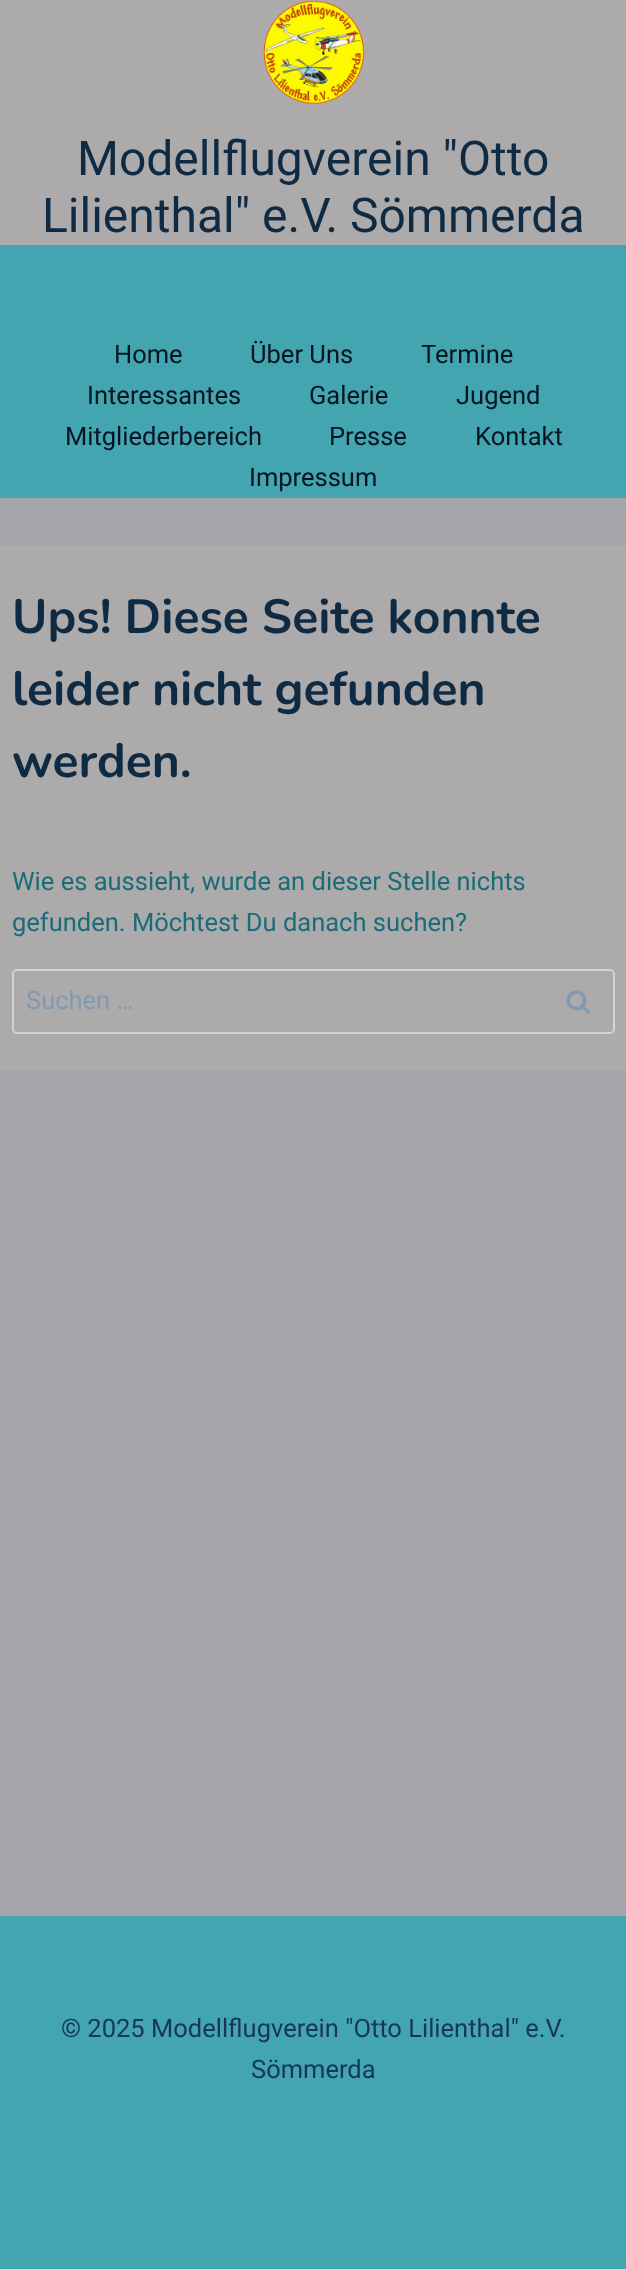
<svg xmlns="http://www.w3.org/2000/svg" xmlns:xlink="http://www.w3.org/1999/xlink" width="626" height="2269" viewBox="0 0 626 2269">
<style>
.cls-1{font:48px Roboto;fill:#0f2a43}
.cls-2{font:25.5px Roboto;fill:#071523}
.cls-3{font:bold 48px Nunito;fill:#0f2a43}
.cls-4{font:25.5px Roboto;fill:#186d78}
.cls-5{font:25.5px Roboto;fill:#829ab1}
.cls-6{font:25.5px Roboto;fill:#163755}
</style>
<rect width="100%" height="100%" fill="#a3a5a9"/>
<rect fill="#acaaaa" x="0" y="0" width="626" height="245"/>
<rect fill="#43a5af" x="0" y="245" width="626" height="253"/>
<image xlink:href="image0.png" x="263" y="0" width="102" height="104"/>
<rect fill="#acaaaa" x="0" y="546" width="626" height="524"/>
<rect fill="none" stroke="#cbd5e0" stroke-width="2" x="13" y="970" width="601" height="63" rx="4"/>
<image xlink:href="image1.png" x="566" y="990" width="24" height="24"/>
<rect fill="#43a5af" x="0" y="1916" width="626" height="353"/>
<text class="cls-1" x="77" y="175">Modellflugverein "Otto</text>
<text class="cls-1" x="42" y="232">Lilienthal" e.V. Sömmerda</text>
<text class="cls-2" x="114" y="363">Home</text>
<text class="cls-2" x="250" y="363">Über Uns</text>
<text class="cls-2" x="421" y="363">Termine</text>
<text class="cls-2" x="87" y="404">Interessantes</text>
<text class="cls-2" x="309" y="404">Galerie</text>
<text class="cls-2" x="456" y="404">Jugend</text>
<text class="cls-2" x="65" y="445">Mitgliederbereich</text>
<text class="cls-2" x="329" y="445">Presse</text>
<text class="cls-2" x="475" y="445">Kontakt</text>
<text class="cls-2" x="249" y="486">Impressum</text>
<text class="cls-3"><tspan x="12" y="633">Ups! Diese Seite konnte</tspan><tspan x="12" y="705">leider nicht gefunden</tspan><tspan x="12" y="777">werden.</tspan></text>
<text class="cls-4"><tspan x="12" y="890">Wie es aussieht, wurde an dieser Stelle nichts</tspan><tspan x="12" y="931">gefunden. Möchtest Du danach suchen?</tspan></text>
<text class="cls-5" x="26" y="1009">Suchen …</text>
<text class="cls-6" x="61" y="2037">© 2025 Modellflugverein "Otto Lilienthal" e.V.</text>
<text class="cls-6" x="251" y="2078">Sömmerda</text>
</svg>
